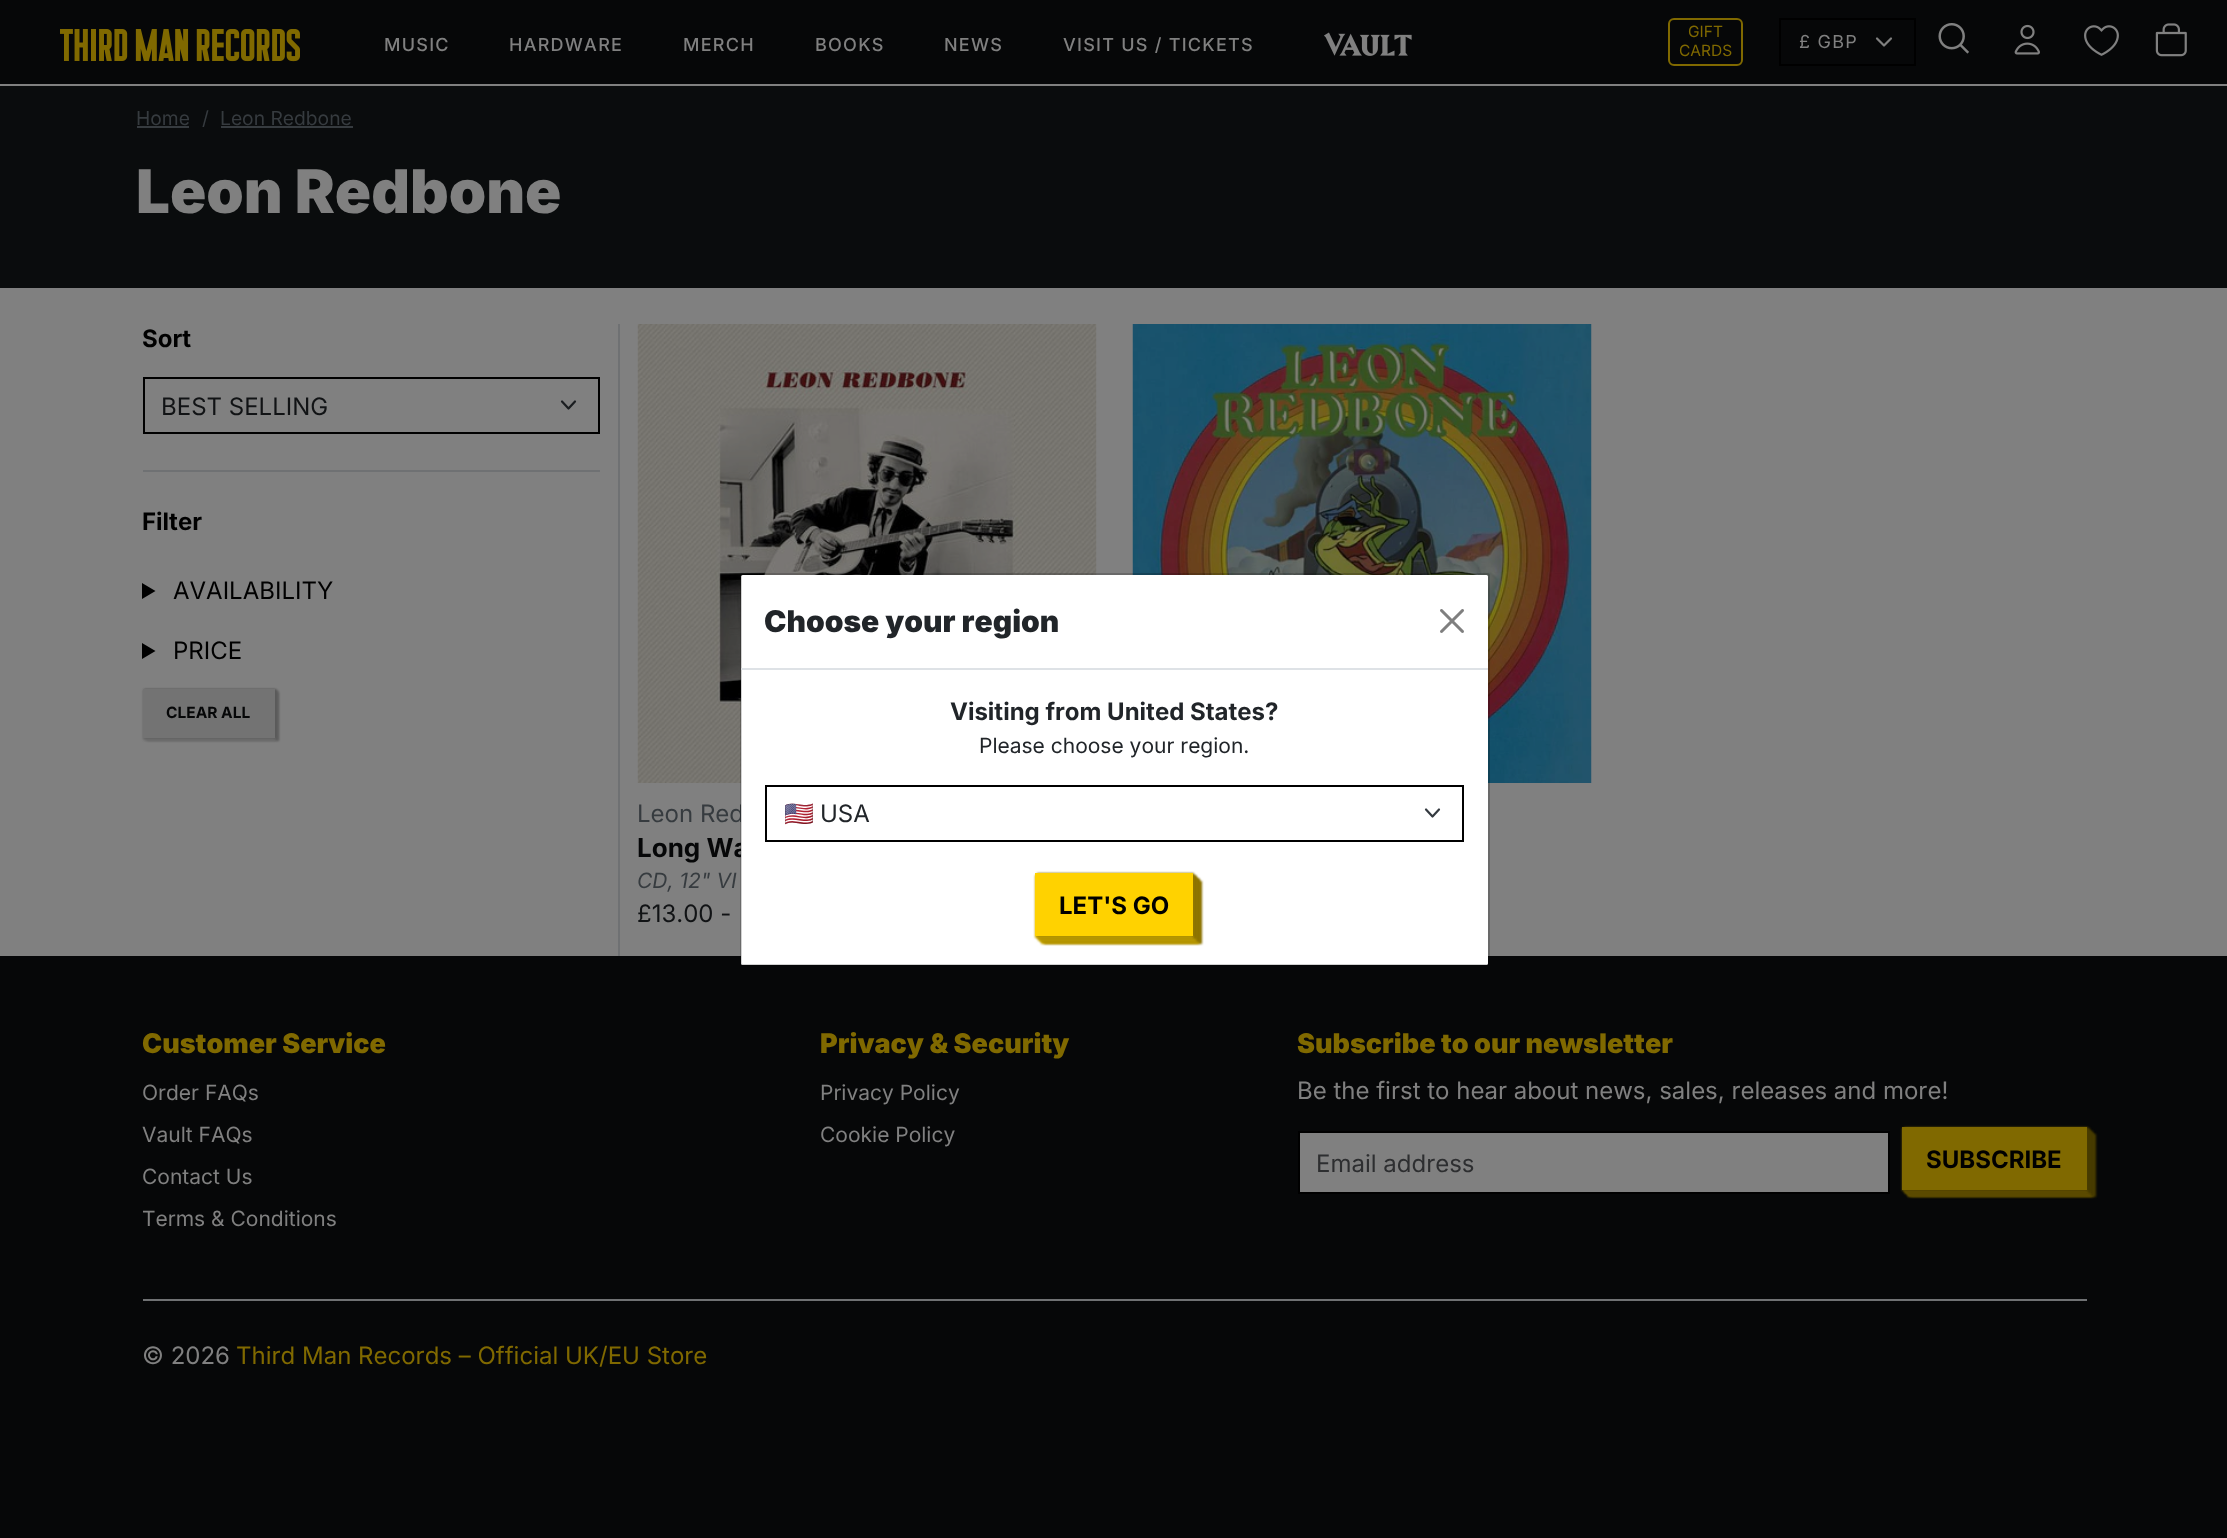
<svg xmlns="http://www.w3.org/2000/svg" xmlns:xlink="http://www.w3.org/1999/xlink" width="2227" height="1538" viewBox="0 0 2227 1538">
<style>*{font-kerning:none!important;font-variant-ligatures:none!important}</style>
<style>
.cls-1{font:500 18px Inter;letter-spacing:1.25px;fill:#808080}
.cls-2{font:15.5px Inter;fill:#806900}
.cls-3{font:18px Inter;letter-spacing:1.25px;fill:#808080}
.cls-4{font:19.25px Inter;fill:#363b3f}
.cls-5{font:900 60px Inter;fill:#808080}
.cls-6{font:bold 24px Inter;fill:#000000}
.cls-7{font:24px Inter;fill:#111315}
.cls-8{font:24px Inter;fill:#000000}
.cls-9{font:bold 15.5px Inter;fill:#060708}
.cls-10{font:24px Inter;fill:#363b3f}
.cls-11{font:bold 26px Inter;fill:#060708}
.cls-12{font:italic 21px Inter;fill:#363b3f}
.cls-13{font:900 30px Inter;fill:#212529}
.cls-14{font:bold 24px Inter;fill:#212529}
.cls-15{font:21px Inter;fill:#212529}
.cls-16{font:24px Noto Color Emoji;fill:#212529}
.cls-17{font:24px Inter;fill:#212529}
.cls-18{font:900 27px Inter;fill:#806900}
.cls-19{font:21px Inter;fill:#808080}
.cls-20{font:24px Inter;fill:#808080}
.cls-21{font:24px Inter;fill:#2d2e30}
.cls-22{font:24px Inter;fill:#806900}
</style>
<defs>
<clipPath id="clip1"><rect x="785" y="795" width="624" height="36"/></clipPath>
</defs>
<rect width="100%" height="100%" fill="#808080"/>
<rect fill="#060708" x="0" y="0" width="2227" height="84"/>
<image xlink:href="image0.png" x="60" y="29" width="240" height="33"/>
<image xlink:href="image1.png" x="1324" y="32" width="88" height="24"/>
<rect fill="none" stroke="#806900" stroke-width="2" x="1669" y="19" width="73" height="46" rx="5"/>
<path fill="none" stroke="#808080" stroke-width="2.2" stroke-linecap="round" stroke-linejoin="round" d="M1877 38.5L1884 45.5L1891 38.5"/>
<rect fill="none" stroke="#000000" stroke-width="2" x="1780" y="19" width="135" height="46"/>
<image xlink:href="image2.png" x="1938" y="23" width="31" height="31"/>
<image xlink:href="image3.png" x="2014" y="24" width="26" height="31"/>
<image xlink:href="image4.png" x="2084" y="25" width="35" height="31"/>
<image xlink:href="image5.png" x="2155" y="23" width="32" height="34"/>
<rect fill="#0a0c0d" x="0" y="86" width="2227" height="202"/>
<rect fill="#363b3f" x="137" y="126" width="52" height="2"/>
<rect fill="#363b3f" x="221" y="126" width="132" height="2"/>
<rect fill="#6f7173" x="618" y="324" width="2" height="632"/>
<rect fill="#6f7173" x="143" y="470" width="457" height="2"/>
<path fill="none" stroke="#1a1d20" stroke-width="2.2" stroke-linecap="round" stroke-linejoin="round" d="M562 401.5L568.5 408.5L575 401.5"/>
<rect fill="none" stroke="#000000" stroke-width="2" x="144" y="378" width="455" height="55"/>
<path fill="#000000" d="M142 583L155.5 591L142 599Z"/>
<path fill="#000000" d="M142 643L155.5 651L142 659Z"/>
<rect fill="#5e5e5e" filter="blur(1px)" x="147" y="692" width="132" height="49"/>
<rect fill="#777777" filter="blur(1px)" x="144" y="692" width="132" height="49"/>
<rect fill="#5e5e5e" filter="blur(1px)" x="146" y="690" width="132" height="50"/>
<rect fill="#6f6f6f" filter="blur(1px)" x="143" y="690" width="132" height="50"/>
<rect fill="#555555" filter="blur(1px)" x="144" y="689" width="132" height="49"/>
<rect fill="#737373" x="143" y="689" width="132" height="49"/>
<image xlink:href="image6.png" x="1132" y="324" width="460" height="459"/>
<image xlink:href="image7.png" x="637" y="324" width="460" height="459"/>
<rect fill="#060708" x="0" y="956" width="2227" height="582"/>
<rect fill="#808080" stroke="#000000" stroke-width="2" x="1299" y="1132" width="590" height="61"/>
<rect fill="#453900" filter="blur(1px)" x="1911" y="1134" width="185" height="63"/>
<rect fill="#655300" filter="blur(1px)" x="1908" y="1134" width="185" height="63"/>
<rect fill="#453900" filter="blur(1px)" x="1910" y="1133" width="184" height="63"/>
<rect fill="#655300" filter="blur(1px)" x="1907" y="1133" width="184" height="63"/>
<rect fill="#453900" filter="blur(1px)" x="1908" y="1131" width="185" height="63"/>
<rect fill="#655300" filter="blur(1px)" x="1905" y="1131" width="185" height="63"/>
<rect fill="#453900" filter="blur(1px)" x="1907" y="1130" width="184" height="63"/>
<rect fill="#655300" filter="blur(1px)" x="1904" y="1130" width="184" height="63"/>
<rect fill="#453900" filter="blur(1px)" x="1905" y="1128" width="185" height="63"/>
<rect fill="#655300" filter="blur(1px)" x="1902" y="1128" width="185" height="63"/>
<rect fill="#453900" filter="blur(1px)" x="1904" y="1127" width="184" height="63"/>
<rect fill="#806900" x="1902" y="1127" width="185" height="63"/>
<rect fill="#6f7173" x="143" y="1299" width="1944" height="2"/>
<text class="cls-1" x="384" y="51">MUSIC</text>
<text class="cls-1" x="509" y="51">HARDWARE</text>
<text class="cls-1" x="683" y="51">MERCH</text>
<text class="cls-1" x="815" y="51">BOOKS</text>
<text class="cls-1" x="944" y="51">NEWS</text>
<text class="cls-1" x="1063" y="51">VISIT US / TICKETS</text>
<text class="cls-2" x="1688" y="37">GIFT</text>
<text class="cls-2" x="1679" y="56">CARDS</text>
<text class="cls-3" x="1799" y="48">£ GBP</text>
<text class="cls-4" x="136" y="125">Home</text>
<text class="cls-4" x="202" y="125">/</text>
<text class="cls-4" x="220" y="125">Leon Redbone</text>
<text class="cls-5" x="136" y="213">Leon Redbone</text>
<text class="cls-6" x="142" y="347">Sort</text>
<text class="cls-7" x="161" y="415">BEST SELLING</text>
<text class="cls-6" x="142" y="530">Filter</text>
<text class="cls-8" x="173" y="599">AVAILABILITY</text>
<text class="cls-8" x="173" y="659">PRICE</text>
<text class="cls-9" x="166" y="718">CLEAR ALL</text>
<text class="cls-10" x="637" y="822">Leon Red</text>
<text class="cls-11" x="637" y="857">Long Wa</text>
<text class="cls-12" x="637" y="888">CD, 12" VI</text>
<text class="cls-7" x="637" y="922">£13.00 -</text>
<rect fill="#ffffff" x="741" y="575" width="747" height="390" rx="1.5"/>
<rect fill="none" stroke="#000000" stroke-opacity="0.18" stroke-width="2" x="741" y="574" width="748" height="391" rx="2"/>
<rect fill="#dee2e6" x="741" y="668" width="747" height="2"/>
<text class="cls-13" x="764" y="632">Choose your region</text>
<image xlink:href="image8.png" x="1440" y="609" width="24" height="24"/>
<text class="cls-14" x="950" y="720">Visiting from United States?</text>
<text class="cls-15" x="979" y="753">Please choose your region.</text>
<path fill="none" stroke="#343a40" stroke-width="2.2" stroke-linecap="round" stroke-linejoin="round" d="M1426 809.5L1432.5 816.5L1439 809.5"/>
<rect fill="none" stroke="#000000" stroke-width="2" x="766" y="786" width="697" height="55"/>
<g clip-path="url(#clip1)">
<text class="cls-16" x="784" y="822">🇺🇸</text>
</g>
<text class="cls-17" x="820" y="822">USA</text>
<rect fill="#8a7100" filter="blur(1px)" x="1044" y="881" width="158" height="63"/>
<rect fill="#c9a600" filter="blur(1px)" x="1041" y="881" width="158" height="63"/>
<rect fill="#8a7100" filter="blur(1px)" x="1043" y="879" width="157" height="63"/>
<rect fill="#c9a600" filter="blur(1px)" x="1040" y="879" width="157" height="63"/>
<rect fill="#8a7100" filter="blur(1px)" x="1041" y="878" width="158" height="63"/>
<rect fill="#c9a600" filter="blur(1px)" x="1038" y="878" width="158" height="63"/>
<rect fill="#8a7100" filter="blur(1px)" x="1040" y="876" width="157" height="63"/>
<rect fill="#c9a600" filter="blur(1px)" x="1037" y="876" width="157" height="63"/>
<rect fill="#8a7100" filter="blur(1px)" x="1038" y="875" width="158" height="63"/>
<rect fill="#c9a600" filter="blur(1px)" x="1035" y="875" width="158" height="63"/>
<rect fill="#8a7100" filter="blur(1px)" x="1037" y="873" width="157" height="63"/>
<rect fill="#ffd200" x="1035" y="873" width="158" height="63"/>
<text class="cls-6" x="1059" y="914">LET'S GO</text>
<text class="cls-18" x="142" y="1053">Customer Service</text>
<text class="cls-19" x="142" y="1100">Order FAQs</text>
<text class="cls-19" x="142" y="1142">Vault FAQs</text>
<text class="cls-19" x="142" y="1184">Contact Us</text>
<text class="cls-19" x="142" y="1226">Terms &amp; Conditions</text>
<text class="cls-18" x="820" y="1053">Privacy &amp; Security</text>
<text class="cls-19" x="820" y="1100">Privacy Policy</text>
<text class="cls-19" x="820" y="1142">Cookie Policy</text>
<text class="cls-18" x="1297" y="1053">Subscribe to our newsletter</text>
<text class="cls-20" x="1297" y="1099">Be the first to hear about news, sales, releases and more!</text>
<text class="cls-21" x="1316" y="1172">Email address</text>
<text class="cls-6" x="1926" y="1168">SUBSCRIBE</text>
<text class="cls-20" x="142" y="1364">© 2026</text>
<text class="cls-22" x="236" y="1364">Third Man Records – Official UK/EU Store</text>
</svg>
